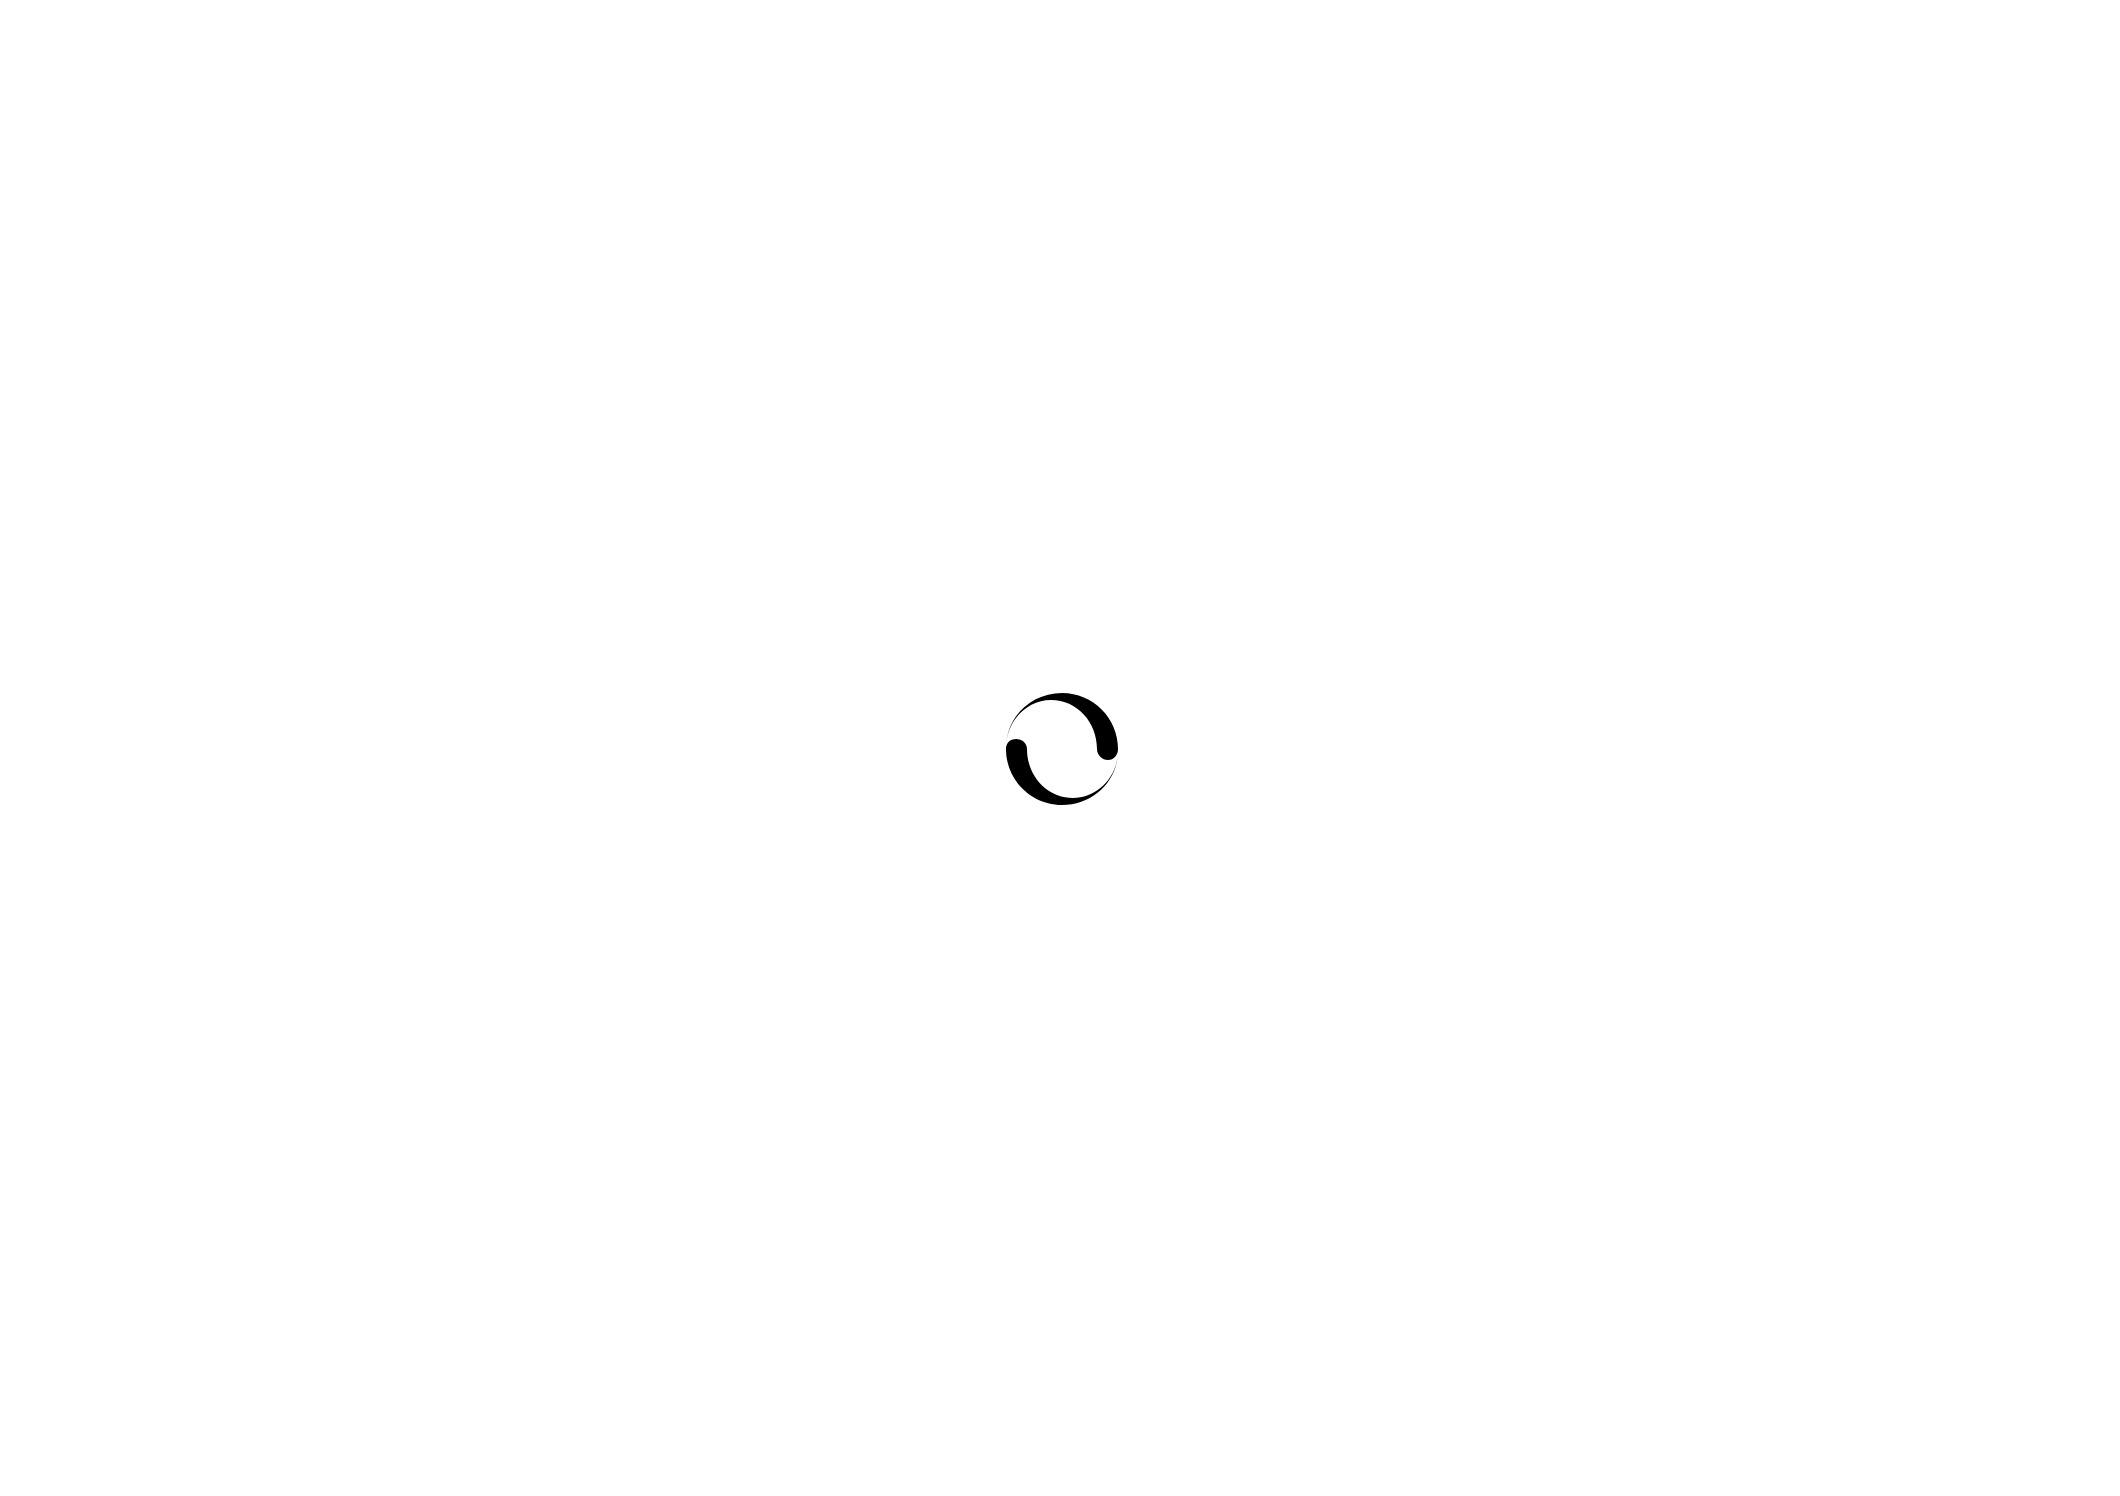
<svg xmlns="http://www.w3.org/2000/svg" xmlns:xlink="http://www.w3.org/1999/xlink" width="2120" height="1496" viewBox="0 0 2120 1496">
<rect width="100%" height="100%" fill="#ffffff"/>
<path fill="#000000" d="M1062 693C1031 693 1006 717 1006 748C1006 721 1027 700 1051 700C1077 700 1097 722 1097 749C1097 755 1102 760 1108 760C1114 760 1118 755 1118 749C1118 718 1093 693 1062 693ZM1062 805C1093 805 1118 781 1118 751C1118 777 1097 798 1073 798C1047 798 1027 776 1027 749C1027 743 1022 739 1016 739C1010 739 1006 743 1006 749C1006 780 1031 805 1062 805Z"/>
</svg>
